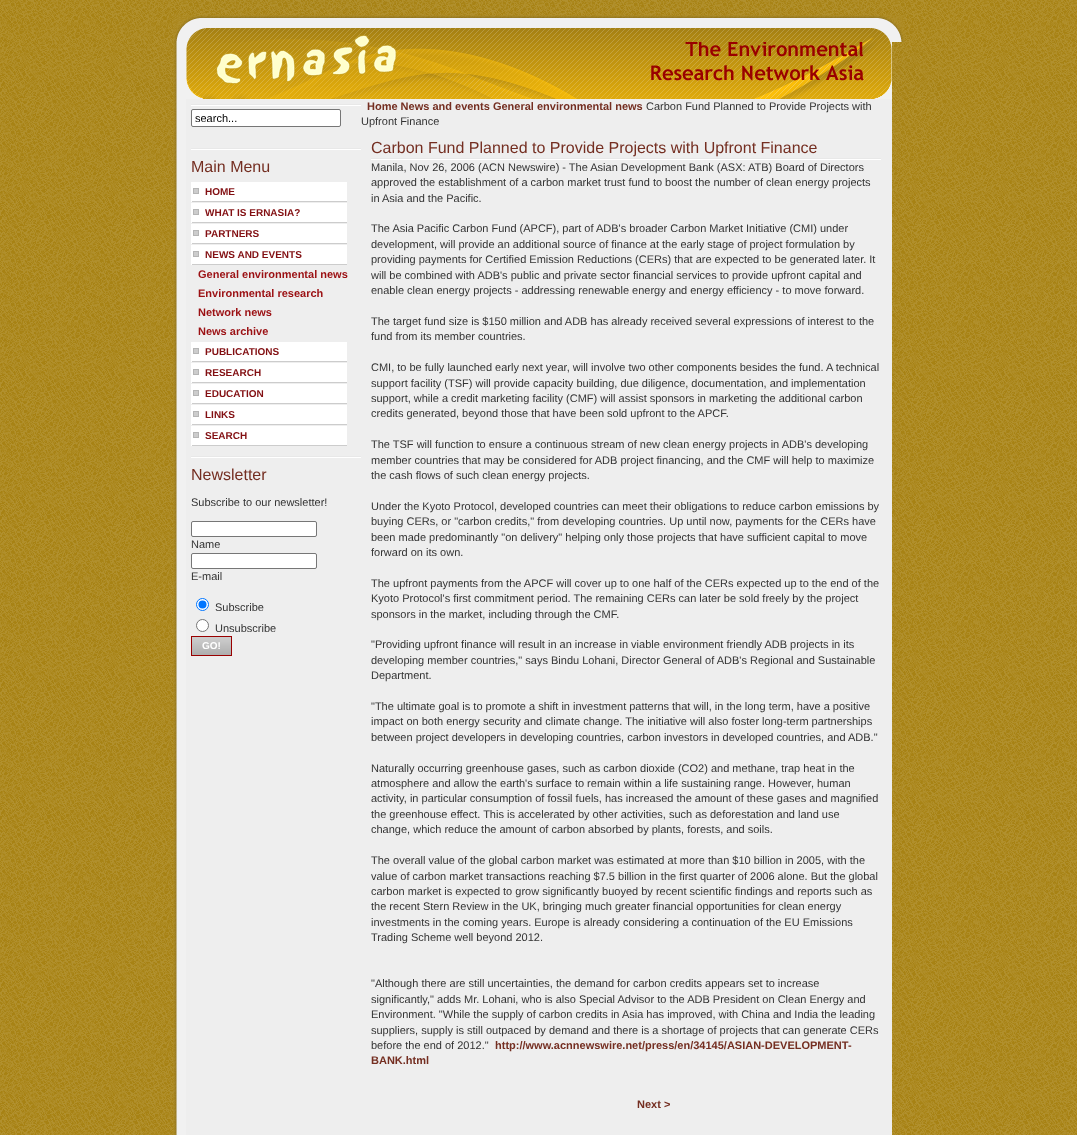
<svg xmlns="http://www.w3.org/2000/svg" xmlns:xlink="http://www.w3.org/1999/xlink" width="1077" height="1135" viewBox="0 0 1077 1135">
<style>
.cls-1{font:11px Liberation Sans;fill:#000000}
.cls-2{font:16px Liberation Sans;fill:#742e21}
.cls-3{font:bold 10px Liberation Sans;fill:#820f12}
.cls-4{font:bold 11px Liberation Sans;fill:#9b1013}
.cls-5{font:11px Liberation Sans;fill:#333333}
.cls-6{font:bold 10px Liberation Sans;fill:#ffffff}
.cls-7{font:bold 11px Liberation Sans;fill:#742e21}
</style>
<rect width="100%" height="100%" fill="#ffffff"/>
<image xlink:href="image0.png" x="0" y="0" width="1077" height="1135"/>
<image xlink:href="image1.png" x="173" y="15" width="732" height="27"/>
<image xlink:href="image2.png" x="173" y="42" width="13" height="1093"/>
<image xlink:href="image3.png" x="186" y="42" width="706" height="57"/>
<rect fill="#eeeeee" x="186" y="99" width="706" height="1036"/>
<image xlink:href="image4.png" x="191" y="104" width="170" height="2"/>
<rect fill="#ffffff" stroke="#767676" x="191.5" y="109.5" width="149" height="17" rx="1.5"/>
<image xlink:href="image4.png" x="191" y="148" width="170" height="2"/>
<image xlink:href="image5.png" x="191" y="182" width="156" height="20"/>
<image xlink:href="image5.png" x="191" y="203" width="156" height="20"/>
<image xlink:href="image5.png" x="191" y="224" width="156" height="20"/>
<image xlink:href="image5.png" x="191" y="245" width="156" height="20"/>
<image xlink:href="image5.png" x="191" y="342" width="156" height="20"/>
<image xlink:href="image5.png" x="191" y="363" width="156" height="20"/>
<image xlink:href="image5.png" x="191" y="384" width="156" height="20"/>
<image xlink:href="image5.png" x="191" y="405" width="156" height="20"/>
<image xlink:href="image5.png" x="191" y="426" width="156" height="20"/>
<image xlink:href="image4.png" x="191" y="456" width="170" height="2"/>
<rect fill="#ffffff" stroke="#767676" x="191.5" y="521.5" width="125" height="15" rx="1.5"/>
<rect fill="#ffffff" stroke="#767676" x="191.5" y="553.5" width="125" height="15" rx="1.5"/>
<circle fill="#ffffff" stroke="#0075ff" cx="202.5" cy="604.5" r="6"/>
<circle fill="#0075ff" cx="202.5" cy="604.5" r="4"/>
<circle fill="#ffffff" stroke="#767676" cx="202.5" cy="625.5" r="6"/>
<image xlink:href="image6.png" x="192" y="637" width="39" height="18"/>
<rect fill="none" stroke="#990000" x="191.5" y="636.5" width="40" height="19"/>
<image xlink:href="image7.png" x="371" y="158" width="510" height="2"/>
<text class="cls-1" x="195" y="122">search...</text>
<text class="cls-2" x="191" y="172">Main Menu</text>
<text class="cls-3" x="205" y="195">HOME</text>
<text class="cls-3" x="205" y="216">WHAT IS ERNASIA?</text>
<text class="cls-3" x="205" y="237">PARTNERS</text>
<text class="cls-3" x="205" y="258">NEWS AND EVENTS</text>
<text class="cls-4"><tspan x="198" y="278">General environmental news</tspan><tspan x="198" y="297">Environmental research</tspan><tspan x="198" y="316">Network news</tspan><tspan x="198" y="335">News archive</tspan></text>
<text class="cls-3" x="205" y="355">PUBLICATIONS</text>
<text class="cls-3" x="205" y="376">RESEARCH</text>
<text class="cls-3" x="205" y="397">EDUCATION</text>
<text class="cls-3" x="205" y="418">LINKS</text>
<text class="cls-3" x="205" y="439">SEARCH</text>
<text class="cls-2" x="191" y="480">Newsletter</text>
<text class="cls-5" x="191" y="506">Subscribe to our newsletter!</text>
<text class="cls-5" x="191" y="548">Name</text>
<text class="cls-5" x="191" y="580">E-mail</text>
<text class="cls-5"><tspan x="215" y="611">Subscribe</tspan><tspan x="215" y="632">Unsubscribe</tspan></text>
<text class="cls-6" x="202" y="649">GO!</text>
<text class="cls-7" x="367" y="110">Home News and events General environmental news</text>
<text class="cls-5" x="646" y="110">Carbon Fund Planned to Provide Projects with</text>
<text class="cls-5" x="361" y="125">Upfront Finance</text>
<text class="cls-2" x="371" y="153">Carbon Fund Planned to Provide Projects with Upfront Finance</text>
<text class="cls-5"><tspan x="371" y="171">Manila, Nov 26, 2006 (ACN Newswire) - The Asian Development Bank (ASX: ATB) Board of Directors</tspan><tspan x="371" y="186">approved the establishment of a carbon market trust fund to boost the number of clean energy projects</tspan><tspan x="371" y="202">in Asia and the Pacific.</tspan></text>
<text class="cls-5"><tspan x="371" y="232">The Asia Pacific Carbon Fund (APCF), part of ADB's broader Carbon Market Initiative (CMI) under</tspan><tspan x="371" y="248">development, will provide an additional source of finance at the early stage of project formulation by</tspan><tspan x="371" y="263">providing payments for Certified Emission Reductions (CERs) that are expected to be generated later. It</tspan><tspan x="371" y="279">will be combined with ADB's public and private sector financial services to provide upfront capital and</tspan><tspan x="371" y="294">enable clean energy projects - addressing renewable energy and energy efficiency - to move forward.</tspan></text>
<text class="cls-5"><tspan x="371" y="325">The target fund size is $150 million and ADB has already received several expressions of interest to the</tspan><tspan x="371" y="340">fund from its member countries.</tspan></text>
<text class="cls-5"><tspan x="371" y="371">CMI, to be fully launched early next year, will involve two other components besides the fund. A technical</tspan><tspan x="371" y="387">support facility (TSF) will provide capacity building, due diligence, documentation, and implementation</tspan><tspan x="371" y="402">support, while a credit marketing facility (CMF) will assist sponsors in marketing the additional carbon</tspan><tspan x="371" y="417">credits generated, beyond those that have been sold upfront to the APCF.</tspan></text>
<text class="cls-5"><tspan x="371" y="448">The TSF will function to ensure a continuous stream of new clean energy projects in ADB's developing</tspan><tspan x="371" y="464">member countries that may be considered for ADB project financing, and the CMF will help to maximize</tspan><tspan x="371" y="479">the cash flows of such clean energy projects.</tspan></text>
<text class="cls-5"><tspan x="371" y="510">Under the Kyoto Protocol, developed countries can meet their obligations to reduce carbon emissions by</tspan><tspan x="371" y="525">buying CERs, or "carbon credits," from developing countries. Up until now, payments for the CERs have</tspan><tspan x="371" y="541">been made predominantly "on delivery" helping only those projects that have sufficient capital to move</tspan><tspan x="371" y="556">forward on its own.</tspan></text>
<text class="cls-5"><tspan x="371" y="587">The upfront payments from the APCF will cover up to one half of the CERs expected up to the end of the</tspan><tspan x="371" y="602">Kyoto Protocol's first commitment period. The remaining CERs can later be sold freely by the project</tspan><tspan x="371" y="618">sponsors in the market, including through the CMF.</tspan></text>
<text class="cls-5"><tspan x="371" y="648">"Providing upfront finance will result in an increase in viable environment friendly ADB projects in its</tspan><tspan x="371" y="664">developing member countries," says Bindu Lohani, Director General of ADB's Regional and Sustainable</tspan><tspan x="371" y="679">Department.</tspan></text>
<text class="cls-5"><tspan x="371" y="710">"The ultimate goal is to promote a shift in investment patterns that will, in the long term, have a positive</tspan><tspan x="371" y="725">impact on both energy security and climate change. The initiative will also foster long-term partnerships</tspan><tspan x="371" y="741">between project developers in developing countries, carbon investors in developed countries, and ADB."</tspan></text>
<text class="cls-5"><tspan x="371" y="772">Naturally occurring greenhouse gases, such as carbon dioxide (CO2) and methane, trap heat in the</tspan><tspan x="371" y="787">atmosphere and allow the earth's surface to remain within a life sustaining range. However, human</tspan><tspan x="371" y="802">activity, in particular consumption of fossil fuels, has increased the amount of these gases and magnified</tspan><tspan x="371" y="818">the greenhouse effect. This is accelerated by other activities, such as deforestation and land use</tspan><tspan x="371" y="833">change, which reduce the amount of carbon absorbed by plants, forests, and soils.</tspan></text>
<text class="cls-5"><tspan x="371" y="864">The overall value of the global carbon market was estimated at more than $10 billion in 2005, with the</tspan><tspan x="371" y="880">value of carbon market transactions reaching $7.5 billion in the first quarter of 2006 alone. But the global</tspan><tspan x="371" y="895">carbon market is expected to grow significantly buoyed by recent scientific findings and reports such as</tspan><tspan x="371" y="910">the recent Stern Review in the UK, bringing much greater financial opportunities for clean energy</tspan><tspan x="371" y="926">investments in the coming years. Europe is already considering a continuation of the EU Emissions</tspan><tspan x="371" y="941">Trading Scheme well beyond 2012.</tspan></text>
<text class="cls-5"><tspan x="371" y="987">"Although there are still uncertainties, the demand for carbon credits appears set to increase</tspan><tspan x="371" y="1003">significantly," adds Mr. Lohani, who is also Special Advisor to the ADB President on Clean Energy and</tspan><tspan x="371" y="1018">Environment. "While the supply of carbon credits in Asia has improved, with China and India the leading</tspan><tspan x="371" y="1034">suppliers, supply is still outpaced by demand and there is a shortage of projects that can generate CERs</tspan><tspan x="371" y="1049">before the end of 2012."</tspan></text>
<text class="cls-7" x="495" y="1049">http://www.acnnewswire.net/press/en/34145/ASIAN-DEVELOPMENT-</text>
<text class="cls-7" x="371" y="1064">BANK.html</text>
<text class="cls-7" x="637" y="1108">Next &gt;</text>
</svg>
